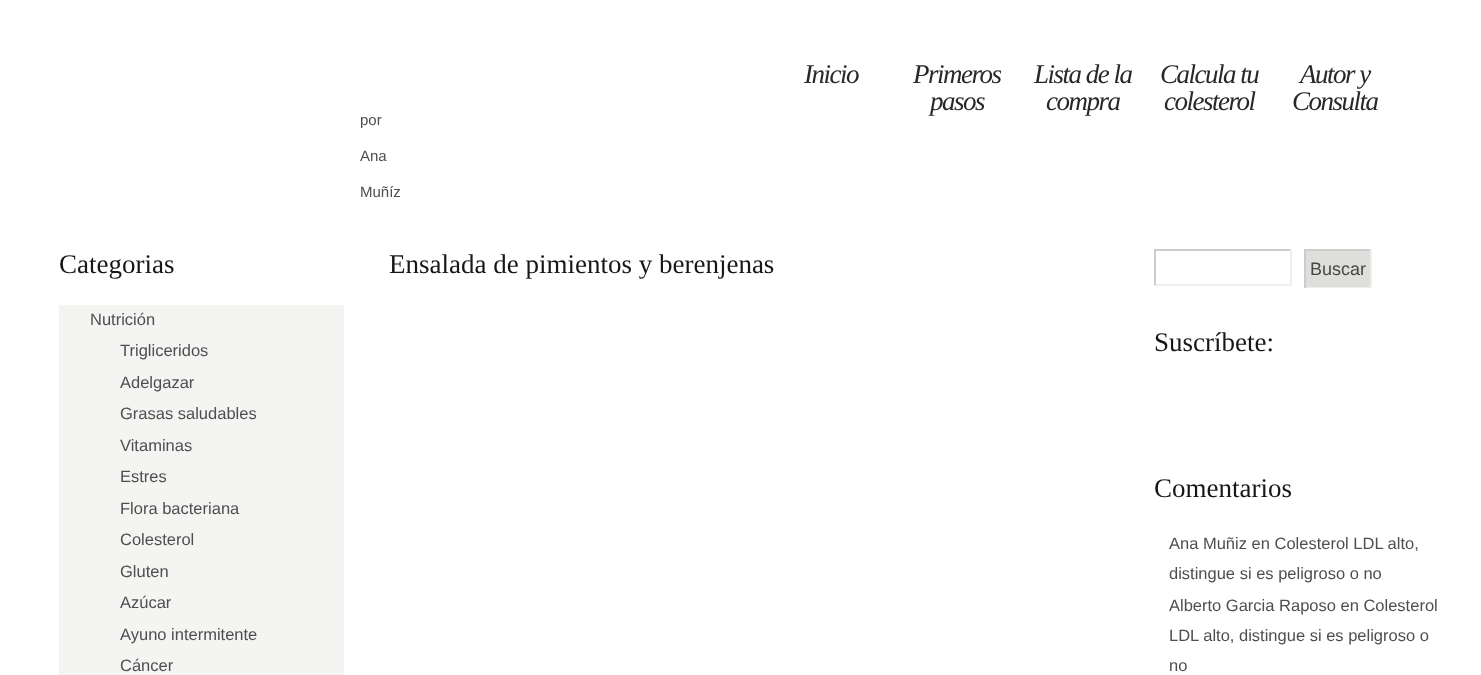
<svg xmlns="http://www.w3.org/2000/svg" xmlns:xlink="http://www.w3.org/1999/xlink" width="1481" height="675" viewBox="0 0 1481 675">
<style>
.cls-1{font:italic 27px Liberation Serif;letter-spacing:-1.5px;fill:#282827}
.cls-2{font:15px Liberation Sans;fill:#4d4e4e}
.cls-3{font:27px Liberation Serif;fill:#171717}
.cls-4{font:16.5px Liberation Sans;fill:#4d4e4e}
.cls-5{font:18px Liberation Sans;fill:#474747}
</style>
<rect width="100%" height="100%" fill="#ffffff"/>
<rect fill="#f4f4f2" x="59" y="305" width="285" height="370"/>
<rect fill="#cccccc" x="1154" y="249" width="138" height="2"/>
<rect fill="#eeeeee" x="1290" y="249" width="2" height="36"/>
<rect fill="#eeeeee" x="1154" y="284" width="138" height="2"/>
<rect fill="#cccccc" x="1154" y="249" width="2" height="36"/>
<rect fill="#dededa" x="1306" y="251" width="64" height="36"/>
<rect fill="#cccccc" x="1304" y="249" width="67" height="2"/>
<rect fill="#eeeeee" x="1370" y="249" width="2" height="39"/>
<rect fill="#eeeeee" x="1304" y="287" width="67" height="1"/>
<rect fill="#cccccc" x="1304" y="249" width="2" height="39"/>
<text class="cls-1" x="804" y="83">Inicio</text>
<text class="cls-1" x="913" y="83">Primeros</text>
<text class="cls-1" x="930" y="110">pasos</text>
<text class="cls-1" x="1034" y="83">Lista de la</text>
<text class="cls-1" x="1046" y="110">compra</text>
<text class="cls-1" x="1160" y="83">Calcula tu</text>
<text class="cls-1" x="1164" y="110">colesterol</text>
<text class="cls-1" x="1300" y="83">Autor y</text>
<text class="cls-1" x="1292" y="110">Consulta</text>
<text class="cls-2" x="360" y="125">por</text>
<text class="cls-2" x="360" y="161">Ana</text>
<text class="cls-2" x="360" y="197">Muñíz</text>
<text class="cls-3" x="59" y="273">Categorias</text>
<text class="cls-4" x="90" y="325">Nutrición</text>
<text class="cls-4"><tspan x="120" y="356">Trigliceridos</tspan><tspan x="120" y="388">Adelgazar</tspan><tspan x="120" y="419">Grasas saludables</tspan><tspan x="120" y="451">Vitaminas</tspan><tspan x="120" y="482">Estres</tspan><tspan x="120" y="514">Flora bacteriana</tspan><tspan x="120" y="545">Colesterol</tspan><tspan x="120" y="577">Gluten</tspan><tspan x="120" y="608">Azúcar</tspan><tspan x="120" y="640">Ayuno intermitente</tspan><tspan x="120" y="671">Cáncer</tspan></text>
<text class="cls-3" x="389" y="273">Ensalada de pimientos y berenjenas</text>
<text class="cls-5" x="1310" y="275">Buscar</text>
<text class="cls-3" x="1154" y="351">Suscríbete:</text>
<text class="cls-3" x="1154" y="497">Comentarios</text>
<text class="cls-4"><tspan x="1169" y="549">Ana Muñiz en Colesterol LDL alto,</tspan><tspan x="1169" y="579">distingue si es peligroso o no</tspan><tspan x="1169" y="611">Alberto Garcia Raposo en Colesterol</tspan><tspan x="1169" y="641">LDL alto, distingue si es peligroso o</tspan><tspan x="1169" y="671">no</tspan></text>
</svg>
